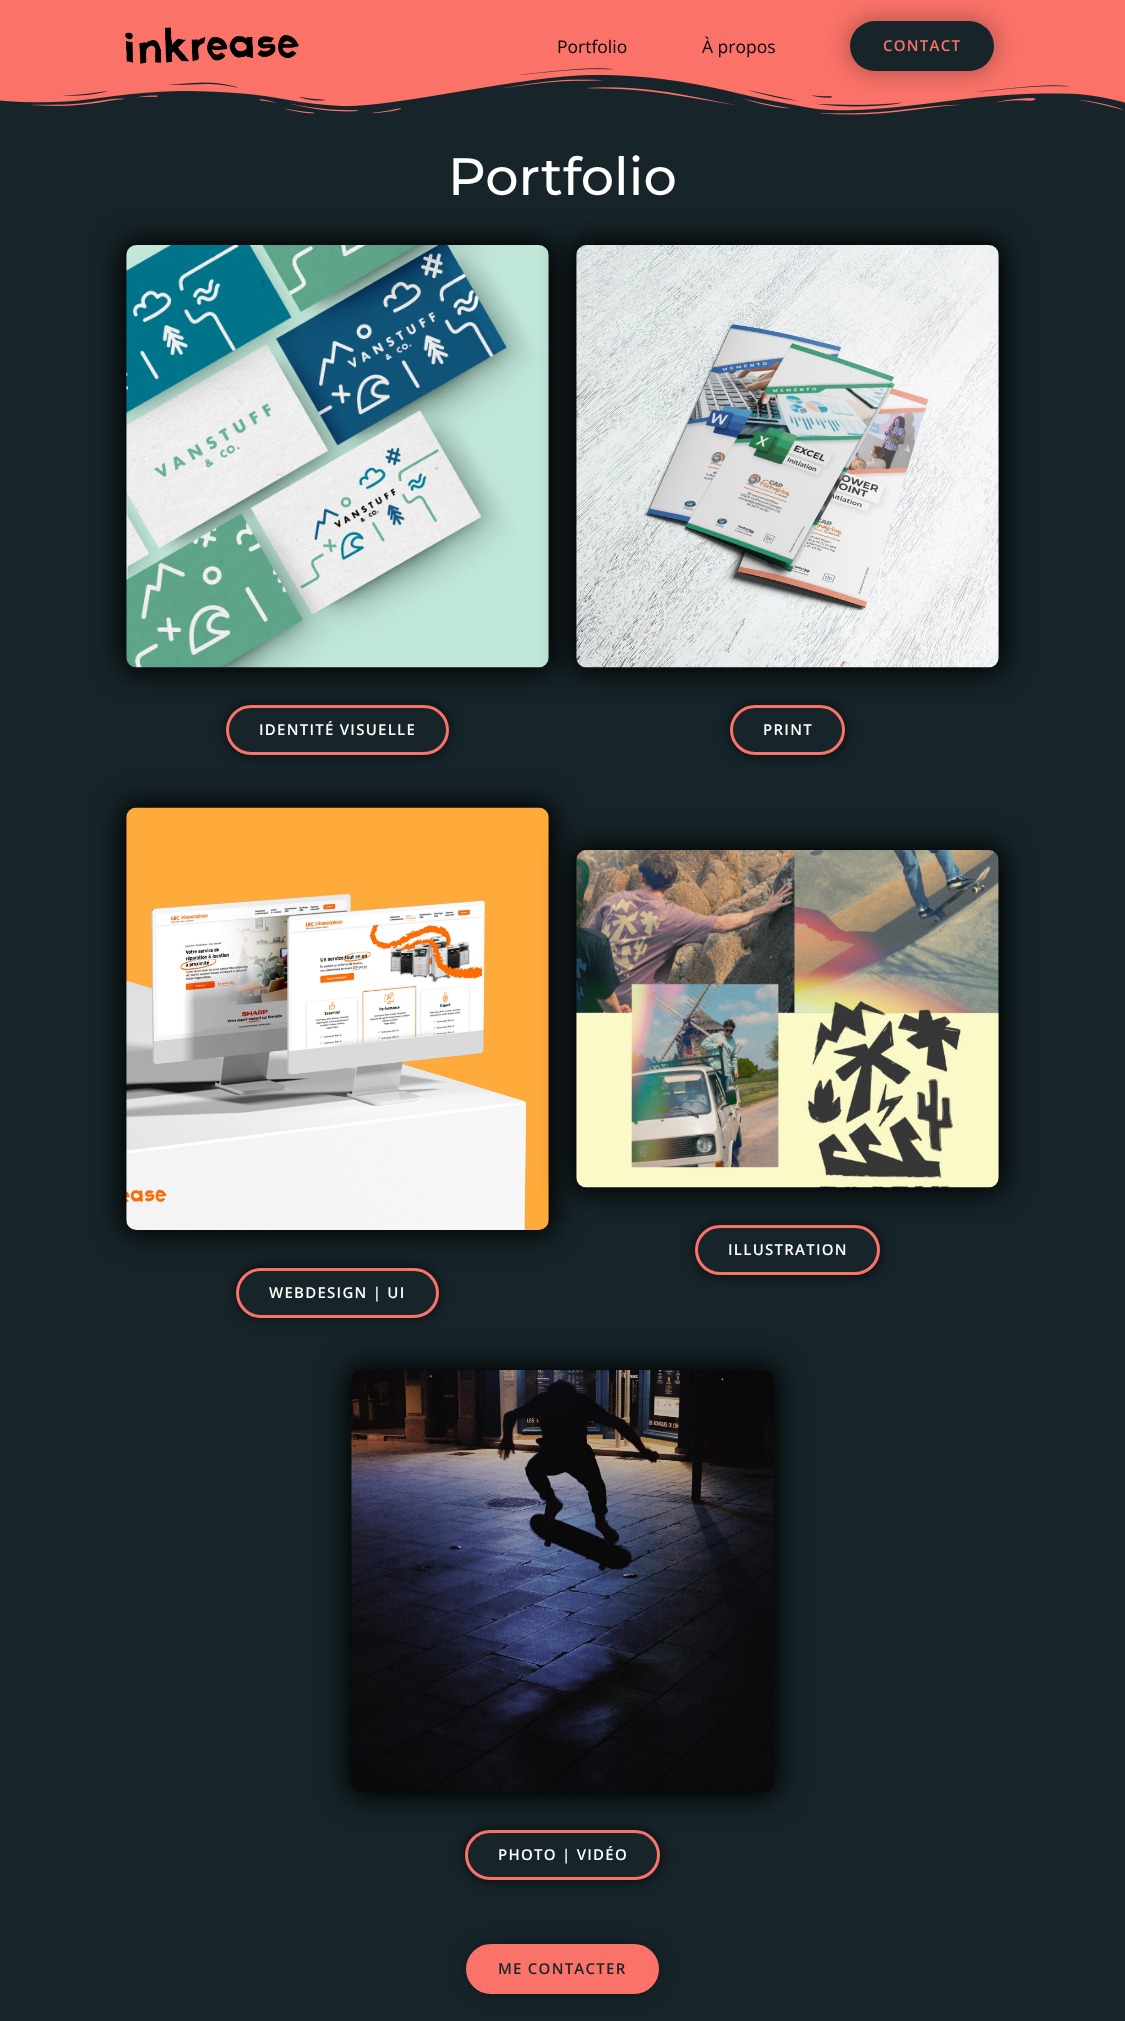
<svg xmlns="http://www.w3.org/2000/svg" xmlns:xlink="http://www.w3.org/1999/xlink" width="1125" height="2021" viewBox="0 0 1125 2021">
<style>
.cls-1{font:17.5px Open Sans;fill:#000000}
.cls-2{font:600 15px Open Sans;letter-spacing:1.25px;fill:#fa7268}
.cls-3{font:500 52.5px Montserrat;fill:#ffffff}
.cls-4{font:600 15px Open Sans;letter-spacing:1.25px;fill:#ffffff}
.cls-5{font:600 15px Open Sans;letter-spacing:1.25px;fill:#17252a}
</style>
<rect width="100%" height="100%" fill="#fa7268"/>
<image xlink:href="image0.png" x="125" y="27" width="174" height="37"/>
<image xlink:href="image1.png" x="0" y="68" width="1125" height="53"/>
<rect fill="#000000" fill-opacity="0.21" filter="blur(9.5px)" x="845" y="16" width="154" height="60" rx="30"/>
<rect fill="#17252a" x="850" y="21" width="144" height="50" rx="25"/>
<rect fill="#17252a" x="0" y="121" width="1125" height="1900"/>
<rect fill="#000000" fill-opacity="0.5" filter="blur(6px)" x="224" y="703" width="227" height="55" rx="27.5"/>
<rect fill="#17252a" stroke="#fa7268" stroke-width="3" x="227.5" y="706.5" width="220" height="47" rx="23.5"/>
<rect fill="#000000" filter="blur(14.5px)" x="121" y="240" width="433" height="433" rx="15"/>
<image xlink:href="image2.png" x="126" y="245" width="423" height="423"/>
<rect fill="#000000" fill-opacity="0.5" filter="blur(6px)" x="728" y="703" width="120" height="55" rx="27.5"/>
<rect fill="#17252a" stroke="#fa7268" stroke-width="3" x="731.5" y="706.5" width="112" height="47" rx="23.5"/>
<rect fill="#000000" filter="blur(14.5px)" x="571" y="240" width="433" height="433" rx="15"/>
<image xlink:href="image3.png" x="576" y="245" width="423" height="423"/>
<rect fill="#000000" fill-opacity="0.5" filter="blur(6px)" x="693" y="1223" width="190" height="55" rx="27.5"/>
<rect fill="#17252a" stroke="#fa7268" stroke-width="3" x="696.5" y="1226.5" width="182" height="47" rx="23.5"/>
<rect fill="#000000" fill-opacity="0.5" filter="blur(6px)" x="234" y="1265" width="207" height="55" rx="27.5"/>
<rect fill="#17252a" stroke="#fa7268" stroke-width="3" x="237.5" y="1269.5" width="200" height="47" rx="23.5"/>
<rect fill="#000000" filter="blur(14.5px)" x="121" y="803" width="433" height="432" rx="15"/>
<image xlink:href="image5.png" x="126" y="807" width="423" height="423"/>
<rect fill="#000000" filter="blur(14.5px)" x="571" y="845" width="433" height="348" rx="15"/>
<image xlink:href="image4.png" x="576" y="850" width="423" height="338"/>
<rect fill="#000000" fill-opacity="0.5" filter="blur(6px)" x="463" y="1828" width="200" height="55" rx="27.5"/>
<rect fill="#17252a" stroke="#fa7268" stroke-width="3" x="466.5" y="1831.5" width="192" height="47" rx="23.5"/>
<rect fill="#000000" filter="blur(14.5px)" x="346" y="1365" width="433" height="433" rx="15"/>
<image xlink:href="image6.png" x="351" y="1370" width="423" height="423"/>
<rect fill="#000000" fill-opacity="0.8" filter="blur(11px)" x="473" y="1950" width="180" height="38" rx="19"/>
<rect fill="#fa7268" stroke="#fa7268" stroke-width="3" x="467.5" y="1945.5" width="190" height="47" rx="23.5"/>
<text class="cls-1" x="557" y="53">Portfolio</text>
<text class="cls-1" x="702" y="53">À propos</text>
<text class="cls-2" x="883" y="51">CONTACT</text>
<text class="cls-3" x="448" y="195">Portfolio</text>
<text class="cls-4" x="259" y="735">IDENTITÉ VISUELLE</text>
<text class="cls-4" x="763" y="735">PRINT</text>
<text class="cls-4" x="728" y="1255">ILLUSTRATION</text>
<text class="cls-4" x="269" y="1298">WEBDESIGN | UI</text>
<text class="cls-4" x="498" y="1860">PHOTO | VIDÉO</text>
<text class="cls-5" x="498" y="1974">ME CONTACTER</text>
</svg>
